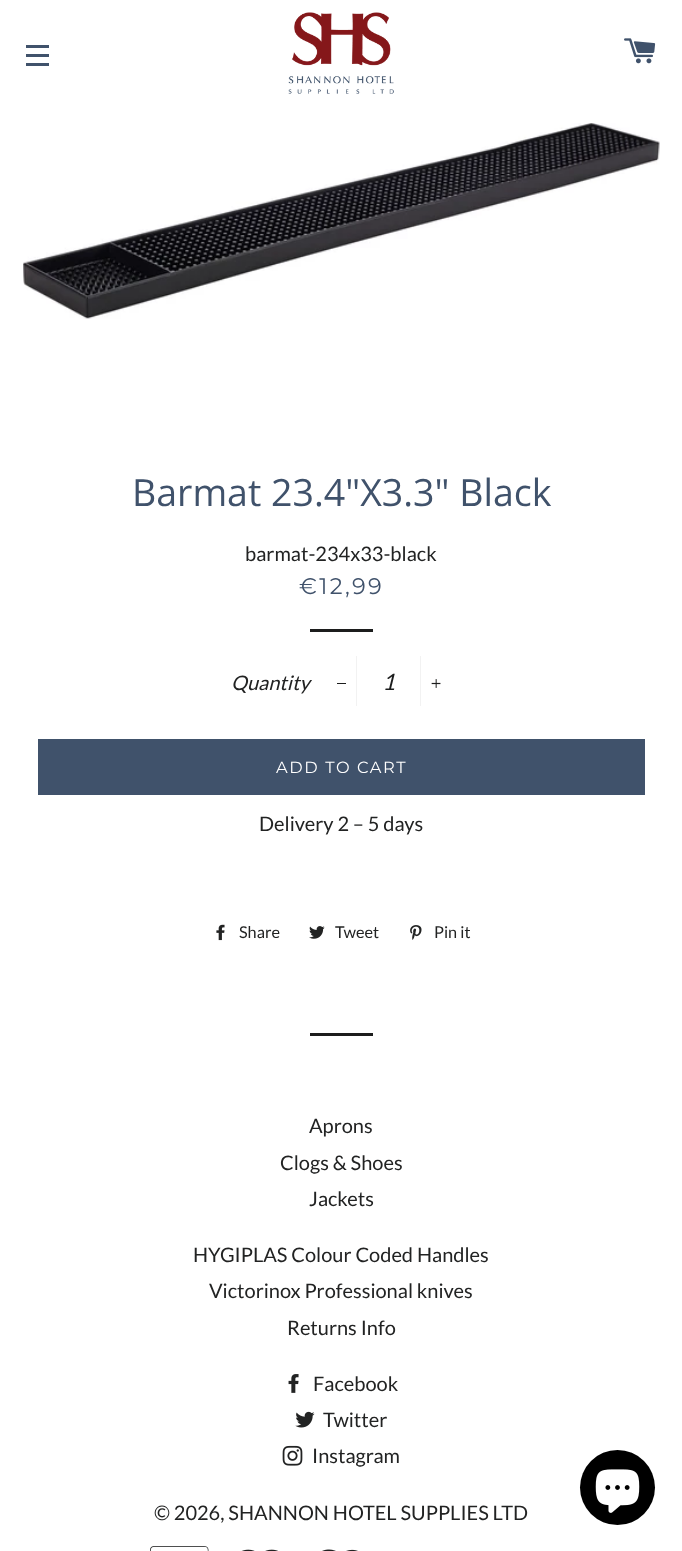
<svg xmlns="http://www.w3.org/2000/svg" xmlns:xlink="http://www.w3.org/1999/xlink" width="682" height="1551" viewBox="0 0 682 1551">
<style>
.cls-1{font:37.5px Open Sans;fill:#40526b}
.cls-2{font:20px Lato;fill:#222323}
.cls-3{font:100 22.5px Montserrat;letter-spacing:2.25px;fill:#40526b}
.cls-4{font:italic 20px Lato;fill:#222323}
.cls-5{font:italic 22.5px Lato;fill:#1c1d1d}
.cls-6{font:100 16.25px Montserrat;letter-spacing:1.6px;fill:#ffffff}
.cls-7{font:16.25px Lato;fill:#222323}
</style>
<rect width="100%" height="100%" fill="#ffffff"/>
<rect fill="#40526b" x="26" y="45" width="23" height="3"/>
<rect fill="#40526b" x="26" y="54" width="23" height="3"/>
<rect fill="#40526b" x="26" y="63" width="23" height="3"/>
<image xlink:href="image0.png" x="288" y="12" width="106" height="82"/>
<image xlink:href="image1.png" x="624" y="38" width="32" height="26"/>
<image xlink:href="image2.png" x="23" y="123" width="637" height="196"/>
<rect fill="#1c1d1d" x="310" y="629" width="63" height="3"/>
<rect fill="#f2f2f2" x="356" y="656" width="1" height="50"/>
<rect fill="#1c1d1d" x="337" y="683" width="9" height="1"/>
<rect fill="#f2f2f2" x="420" y="656" width="1" height="50"/>
<image xlink:href="image3.png" x="431" y="679" width="10" height="9"/>
<rect fill="#40526b" x="38" y="739" width="607" height="56"/>
<image xlink:href="image4.png" x="216" y="924" width="9" height="17"/>
<image xlink:href="image5.png" x="309" y="926" width="16" height="13"/>
<image xlink:href="image6.png" x="410" y="925" width="12" height="15"/>
<rect fill="#1c1d1d" x="310" y="1033" width="63" height="3"/>
<image xlink:href="image7.png" x="288" y="1374" width="11" height="19"/>
<image xlink:href="image8.png" x="295" y="1411" width="20" height="17"/>
<image xlink:href="image9.png" x="282" y="1445" width="21" height="21"/>
<image xlink:href="image10.png" x="150" y="1546" width="59" height="5"/>
<image xlink:href="image11.png" x="241" y="1549" width="37" height="2"/>
<image xlink:href="image12.png" x="322" y="1549" width="36" height="2"/>
<circle fill="#000000" cx="617.5" cy="1487.5" r="37.5"/>
<image xlink:href="image13.png" x="595" y="1469" width="45" height="44"/>
<text class="cls-1" x="132" y="506">Barmat 23.4"X3.3" Black</text>
<text class="cls-2" x="245" y="561">barmat-234x33-black</text>
<text class="cls-3" x="299" y="594">€12,99</text>
<text class="cls-4" x="231" y="690">Quantity</text>
<text class="cls-5" x="382" y="690">1</text>
<text class="cls-6" x="276" y="773">ADD TO CART</text>
<text class="cls-2" x="259" y="831">Delivery 2 – 5 days</text>
<text class="cls-7" x="239" y="938">Share</text>
<text class="cls-7" x="335" y="938">Tweet</text>
<text class="cls-7" x="434" y="938">Pin it</text>
<text class="cls-2" x="309" y="1133">Aprons</text>
<text class="cls-2" x="280" y="1170">Clogs &amp; Shoes</text>
<text class="cls-2" x="309" y="1206">Jackets</text>
<text class="cls-2" x="193" y="1262">HYGIPLAS Colour Coded Handles</text>
<text class="cls-2" x="209" y="1298">Victorinox Professional knives</text>
<text class="cls-2" x="287" y="1335">Returns Info</text>
<text class="cls-2" x="313" y="1391">Facebook</text>
<text class="cls-2" x="323" y="1427">Twitter</text>
<text class="cls-2" x="312" y="1463">Instagram</text>
<text class="cls-2" x="154" y="1520">© 2026, SHANNON HOTEL SUPPLIES LTD</text>
</svg>
